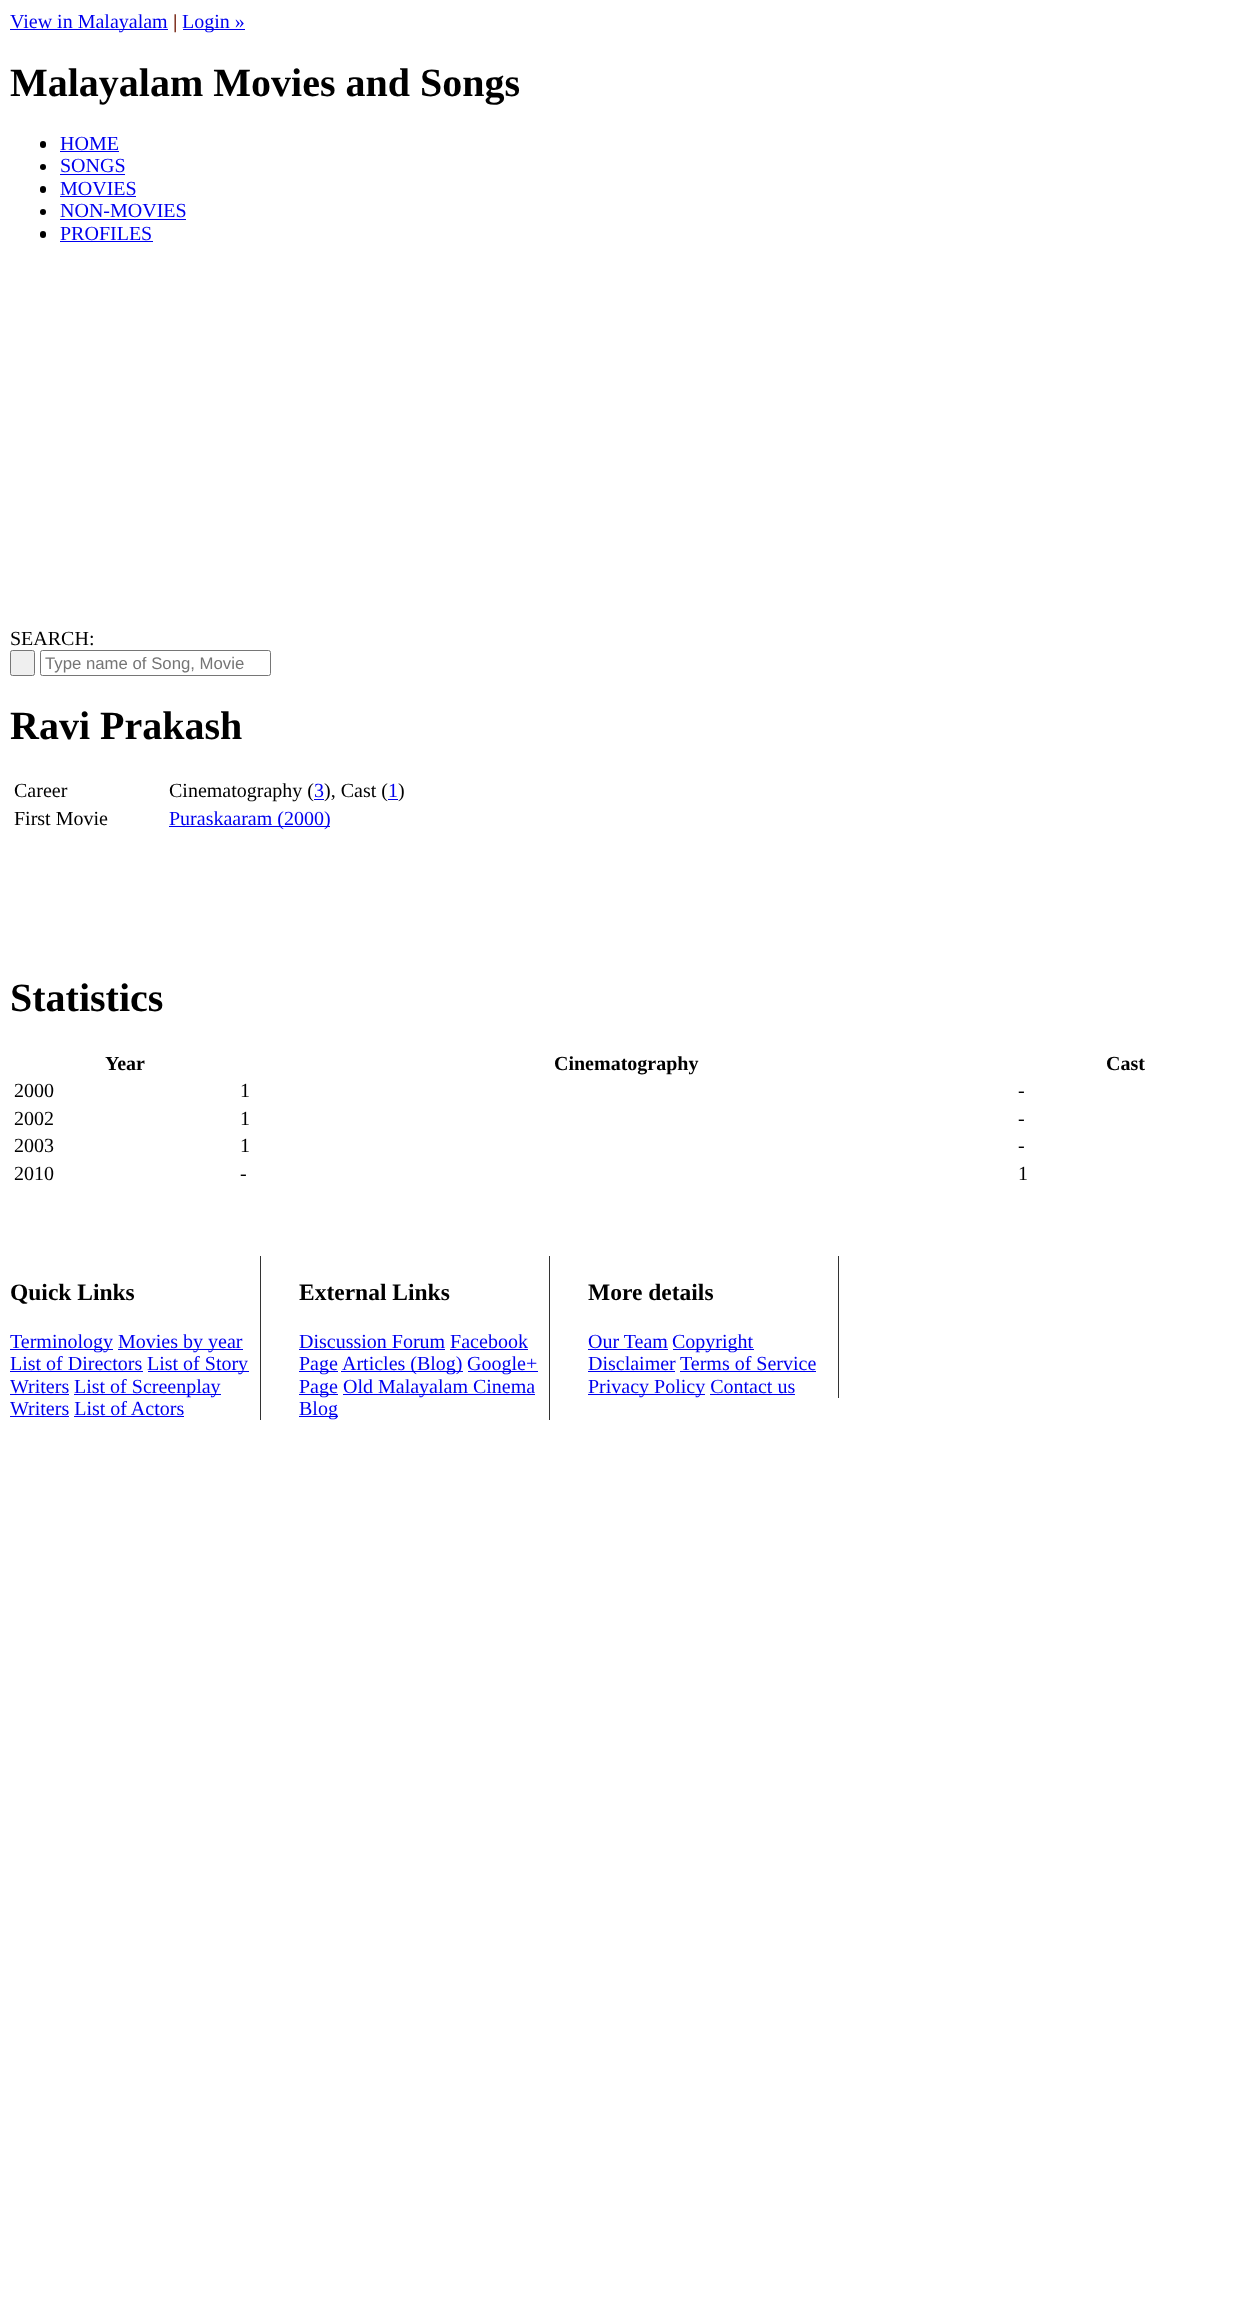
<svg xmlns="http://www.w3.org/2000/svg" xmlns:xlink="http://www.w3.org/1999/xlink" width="1247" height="2305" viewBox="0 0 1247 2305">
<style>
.cls-1{font:20px Liberation Serif;fill:#0000ee}
.cls-2{font:bold 20px Liberation Serif;fill:#762311}
.cls-3{font:bold 40px Liberation Serif;fill:#000000}
.cls-4{font:20px Liberation Serif;fill:#000000}
.cls-5{font:16.75px Liberation Sans;fill:#757575}
.cls-6{font:bold 20px Liberation Serif;fill:#000000}
.cls-7{font:bold 23.5px Liberation Serif;fill:#000000}
</style>
<rect width="100%" height="100%" fill="#ffffff"/>
<rect fill="#0000ee" x="10" y="29" width="158" height="1"/>
<rect fill="#0000ee" x="183" y="29" width="62" height="1"/>
<rect fill="#000000" x="40" y="141" width="6" height="7" rx="3"/>
<rect fill="#0000ee" x="60" y="151" width="59" height="1"/>
<circle fill="#000000" cx="43" cy="167" r="3"/>
<rect fill="#0000ee" x="60" y="174" width="65" height="1"/>
<rect fill="#000000" x="40" y="186" width="6" height="7" rx="3"/>
<rect fill="#0000ee" x="60" y="196" width="76" height="1"/>
<circle fill="#000000" cx="43" cy="212" r="3"/>
<rect fill="#0000ee" x="60" y="219" width="126" height="1"/>
<rect fill="#000000" x="40" y="231" width="6" height="7" rx="3"/>
<rect fill="#0000ee" x="60" y="241" width="93" height="1"/>
<rect fill="#efefef" stroke="#767676" x="10.5" y="650.5" width="24" height="25" rx="2"/>
<rect fill="none" stroke="#767676" x="40.5" y="650.5" width="230" height="25" rx="2"/>
<rect fill="#0000ee" x="314" y="799" width="10" height="1"/>
<rect fill="#0000ee" x="388" y="799" width="10" height="1"/>
<rect fill="#0000ee" x="169" y="826" width="161" height="1"/>
<rect fill="#333333" x="260" y="1256" width="1" height="164"/>
<rect fill="#0000ee" x="10" y="1349" width="103" height="1"/>
<rect fill="#0000ee" x="118" y="1349" width="125" height="1"/>
<rect fill="#0000ee" x="10" y="1371" width="133" height="1"/>
<rect fill="#0000ee" x="148" y="1371" width="101" height="1"/>
<rect fill="#0000ee" x="10" y="1394" width="59" height="1"/>
<rect fill="#0000ee" x="74" y="1394" width="147" height="1"/>
<rect fill="#0000ee" x="10" y="1416" width="59" height="1"/>
<rect fill="#0000ee" x="74" y="1416" width="110" height="1"/>
<rect fill="#333333" x="549" y="1256" width="1" height="164"/>
<rect fill="#0000ee" x="299" y="1349" width="146" height="1"/>
<rect fill="#0000ee" x="450" y="1349" width="78" height="1"/>
<rect fill="#0000ee" x="299" y="1371" width="39" height="1"/>
<rect fill="#0000ee" x="341" y="1371" width="122" height="1"/>
<rect fill="#0000ee" x="468" y="1371" width="70" height="1"/>
<rect fill="#0000ee" x="299" y="1394" width="39" height="1"/>
<rect fill="#0000ee" x="343" y="1394" width="192" height="1"/>
<rect fill="#0000ee" x="299" y="1416" width="39" height="1"/>
<rect fill="#333333" x="838" y="1256" width="1" height="142"/>
<rect fill="#0000ee" x="588" y="1349" width="80" height="1"/>
<rect fill="#0000ee" x="673" y="1349" width="81" height="1"/>
<rect fill="#0000ee" x="588" y="1371" width="87" height="1"/>
<rect fill="#0000ee" x="680" y="1371" width="136" height="1"/>
<rect fill="#0000ee" x="588" y="1394" width="117" height="1"/>
<rect fill="#0000ee" x="710" y="1394" width="85" height="1"/>
<text class="cls-1" x="10" y="28">View in Malayalam</text>
<text class="cls-2" x="173" y="28">|</text>
<text class="cls-1" x="182" y="28">Login »</text>
<text class="cls-3" x="10" y="96">Malayalam Movies and Songs</text>
<text class="cls-1"><tspan x="60" y="150">HOME</tspan><tspan x="60" y="172">SONGS</tspan><tspan x="60" y="195">MOVIES</tspan><tspan x="60" y="217">NON-MOVIES</tspan><tspan x="60" y="240">PROFILES</tspan></text>
<text class="cls-4" x="10" y="645">SEARCH:</text>
<text class="cls-5" x="45" y="669">Type name of Song, Movie</text>
<text class="cls-3" x="10" y="739">Ravi Prakash</text>
<text class="cls-4" x="14" y="797">Career</text>
<text class="cls-4" x="169" y="797">Cinematography (</text>
<text class="cls-1" x="314" y="797">3</text>
<text class="cls-4" x="324" y="797">), Cast (</text>
<text class="cls-1" x="388" y="797">1</text>
<text class="cls-4" x="398" y="797">)</text>
<text class="cls-4" x="14" y="825">First Movie</text>
<text class="cls-1" x="169" y="825">Puraskaaram (2000)</text>
<text class="cls-3" x="10" y="1011">Statistics</text>
<text class="cls-6" x="105" y="1070">Year</text>
<text class="cls-6" x="554" y="1070">Cinematography</text>
<text class="cls-6" x="1106" y="1070">Cast</text>
<text class="cls-4" x="14" y="1097">2000</text>
<text class="cls-4" x="240" y="1097">1</text>
<text class="cls-4" x="1018" y="1097">-</text>
<text class="cls-4" x="14" y="1125">2002</text>
<text class="cls-4" x="240" y="1125">1</text>
<text class="cls-4" x="1018" y="1125">-</text>
<text class="cls-4" x="14" y="1152">2003</text>
<text class="cls-4" x="240" y="1152">1</text>
<text class="cls-4" x="1018" y="1152">-</text>
<text class="cls-4" x="14" y="1180">2010</text>
<text class="cls-4" x="240" y="1180">-</text>
<text class="cls-4" x="1018" y="1180">1</text>
<text class="cls-7" x="10" y="1300">Quick Links</text>
<text class="cls-1" x="10" y="1348">Terminology</text>
<text class="cls-1" x="118" y="1348">Movies by year</text>
<text class="cls-1" x="10" y="1370">List of Directors</text>
<text class="cls-1" x="147" y="1370">List of Story</text>
<text class="cls-1" x="10" y="1393">Writers</text>
<text class="cls-1" x="74" y="1393">List of Screenplay</text>
<text class="cls-1" x="10" y="1415">Writers List of Actors</text>
<text class="cls-7" x="299" y="1300">External Links</text>
<text class="cls-1"><tspan x="299" y="1348">Discussion Forum Facebook</tspan><tspan x="299" y="1370">Page</tspan></text>
<text class="cls-1" x="342" y="1370">Articles (Blog)</text>
<text class="cls-1" x="467" y="1370">Google+</text>
<text class="cls-1" x="299" y="1393">Page</text>
<text class="cls-1" x="343" y="1393">Old Malayalam Cinema</text>
<text class="cls-1" x="299" y="1415">Blog</text>
<text class="cls-7" x="588" y="1300">More details</text>
<text class="cls-1" x="588" y="1348">Our Team</text>
<text class="cls-1" x="672" y="1348">Copyright</text>
<text class="cls-1" x="588" y="1370">Disclaimer</text>
<text class="cls-1" x="680" y="1370">Terms of Service</text>
<text class="cls-1" x="588" y="1393">Privacy Policy Contact us</text>
</svg>
